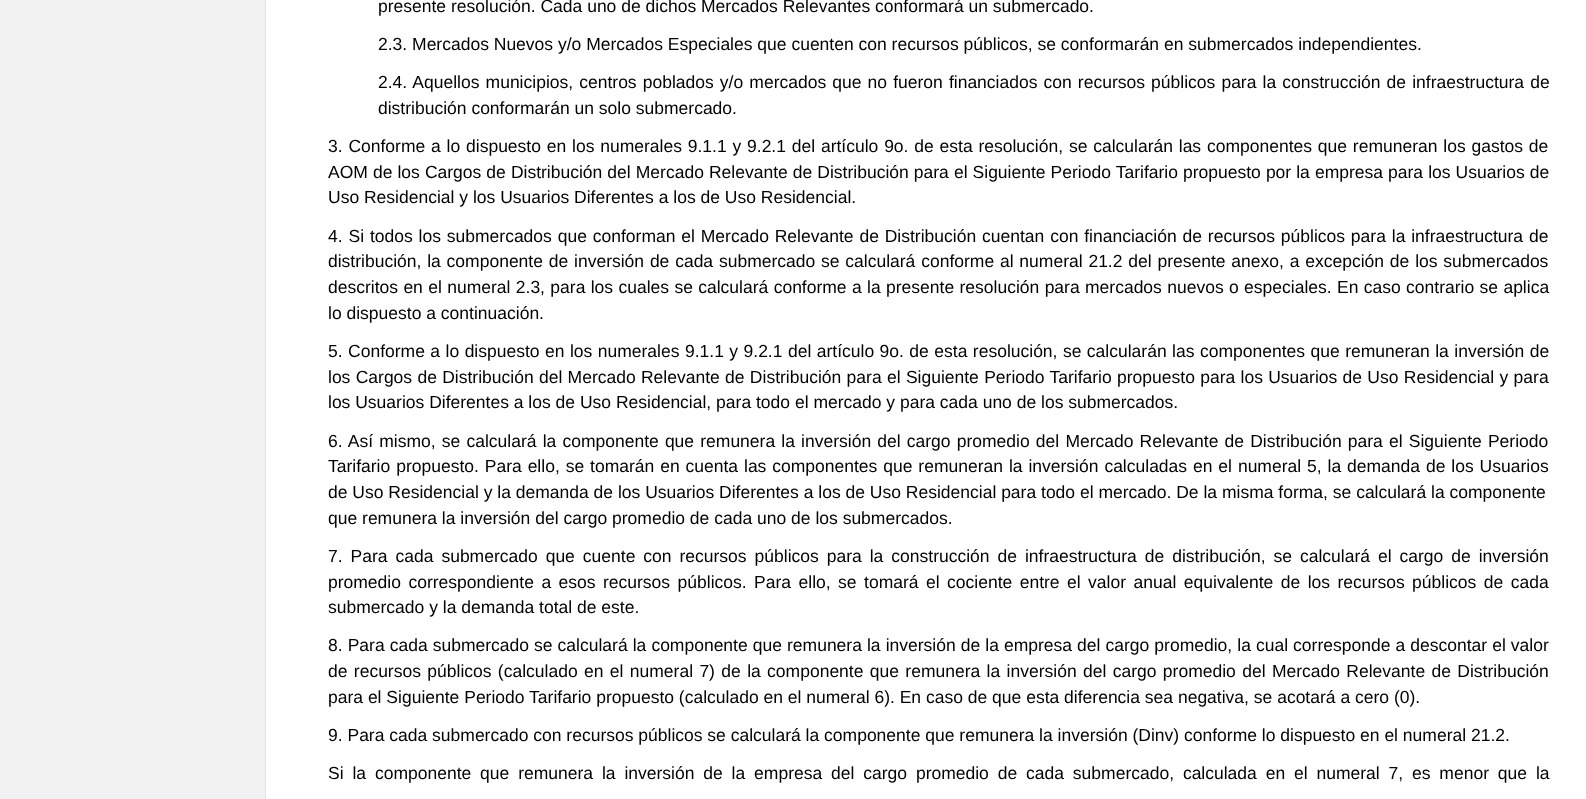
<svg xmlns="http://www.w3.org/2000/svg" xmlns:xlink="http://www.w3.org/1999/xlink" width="1586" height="799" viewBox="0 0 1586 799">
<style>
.cls-1{font:17.5px Liberation Sans;fill:#000000}
</style>
<rect width="100%" height="100%" fill="#f2f2f2"/>
<rect fill="#ffffff" x="266" y="0" width="1320" height="799"/>
<rect fill="#e4e4e4" x="265" y="0" width="1" height="799"/>
<text class="cls-1" x="378" y="12">presente resolución. Cada uno de dichos Mercados Relevantes conformará un submercado.</text>
<text class="cls-1" x="378" y="50">2.3. Mercados Nuevos y/o Mercados Especiales que cuenten con recursos públicos, se conformarán en submercados independientes.</text>
<text class="cls-1"><tspan x="378" y="88" word-spacing="1.25">2.4. Aquellos municipios, centros poblados y/o mercados que no fueron financiados con recursos públicos para la construcción de infraestructura de</tspan><tspan x="378" y="114">distribución conformarán un solo submercado.</tspan></text>
<text class="cls-1"><tspan x="328" y="152" word-spacing="0.95">3. Conforme a lo dispuesto en los numerales 9.1.1 y 9.2.1 del artículo 9o. de esta resolución, se calcularán las componentes que remuneran los gastos de</tspan><tspan x="328" y="178" word-spacing="0.2">AOM de los Cargos de Distribución del Mercado Relevante de Distribución para el Siguiente Periodo Tarifario propuesto por la empresa para los Usuarios de</tspan><tspan x="328" y="203">Uso Residencial y los Usuarios Diferentes a los de Uso Residencial.</tspan></text>
<text class="cls-1"><tspan x="328" y="242" word-spacing="1">4. Si todos los submercados que conforman el Mercado Relevante de Distribución cuentan con financiación de recursos públicos para la infraestructura de</tspan><tspan x="328" y="267" word-spacing="0.95">distribución, la componente de inversión de cada submercado se calculará conforme al numeral 21.2 del presente anexo, a excepción de los submercados</tspan><tspan x="328" y="293" word-spacing="0.5">descritos en el numeral 2.3, para los cuales se calculará conforme a la presente resolución para mercados nuevos o especiales. En caso contrario se aplica</tspan><tspan x="328" y="319">lo dispuesto a continuación.</tspan></text>
<text class="cls-1"><tspan x="328" y="357" word-spacing="0.6">5. Conforme a lo dispuesto en los numerales 9.1.1 y 9.2.1 del artículo 9o. de esta resolución, se calcularán las componentes que remuneran la inversión de</tspan><tspan x="328" y="383" word-spacing="0.45">los Cargos de Distribución del Mercado Relevante de Distribución para el Siguiente Periodo Tarifario propuesto para los Usuarios de Uso Residencial y para</tspan><tspan x="328" y="408">los Usuarios Diferentes a los de Uso Residencial, para todo el mercado y para cada uno de los submercados.</tspan></text>
<text class="cls-1"><tspan x="328" y="447" word-spacing="1.3">6. Así mismo, se calculará la componente que remunera la inversión del cargo promedio del Mercado Relevante de Distribución para el Siguiente Periodo</tspan><tspan x="328" y="472" word-spacing="1.05">Tarifario propuesto. Para ello, se tomarán en cuenta las componentes que remuneran la inversión calculadas en el numeral 5, la demanda de los Usuarios</tspan><tspan x="328" y="498">de Uso Residencial y la demanda de los Usuarios Diferentes a los de Uso Residencial para todo el mercado. De la misma forma, se calculará la componente</tspan><tspan x="328" y="524">que remunera la inversión del cargo promedio de cada uno de los submercados.</tspan></text>
<text class="cls-1"><tspan x="328" y="562" word-spacing="3.1">7. Para cada submercado que cuente con recursos públicos para la construcción de infraestructura de distribución, se calculará el cargo de inversión</tspan><tspan x="328" y="588" word-spacing="2.6">promedio correspondiente a esos recursos públicos. Para ello, se tomará el cociente entre el valor anual equivalente de los recursos públicos de cada</tspan><tspan x="328" y="613">submercado y la demanda total de este.</tspan></text>
<text class="cls-1"><tspan x="328" y="651" word-spacing="0.2">8. Para cada submercado se calculará la componente que remunera la inversión de la empresa del cargo promedio, la cual corresponde a descontar el valor</tspan><tspan x="328" y="677" word-spacing="1.5">de recursos públicos (calculado en el numeral 7) de la componente que remunera la inversión del cargo promedio del Mercado Relevante de Distribución</tspan><tspan x="328" y="703">para el Siguiente Periodo Tarifario propuesto (calculado en el numeral 6). En caso de que esta diferencia sea negativa, se acotará a cero (0).</tspan></text>
<text class="cls-1" x="328" y="741">9. Para cada submercado con recursos públicos se calculará la componente que remunera la inversión (Dinv) conforme lo dispuesto en el numeral 21.2.</text>
<text class="cls-1" x="328" y="779" word-spacing="4">Si la componente que remunera la inversión de la empresa del cargo promedio de cada submercado, calculada en el numeral 7, es menor que la</text>
</svg>
